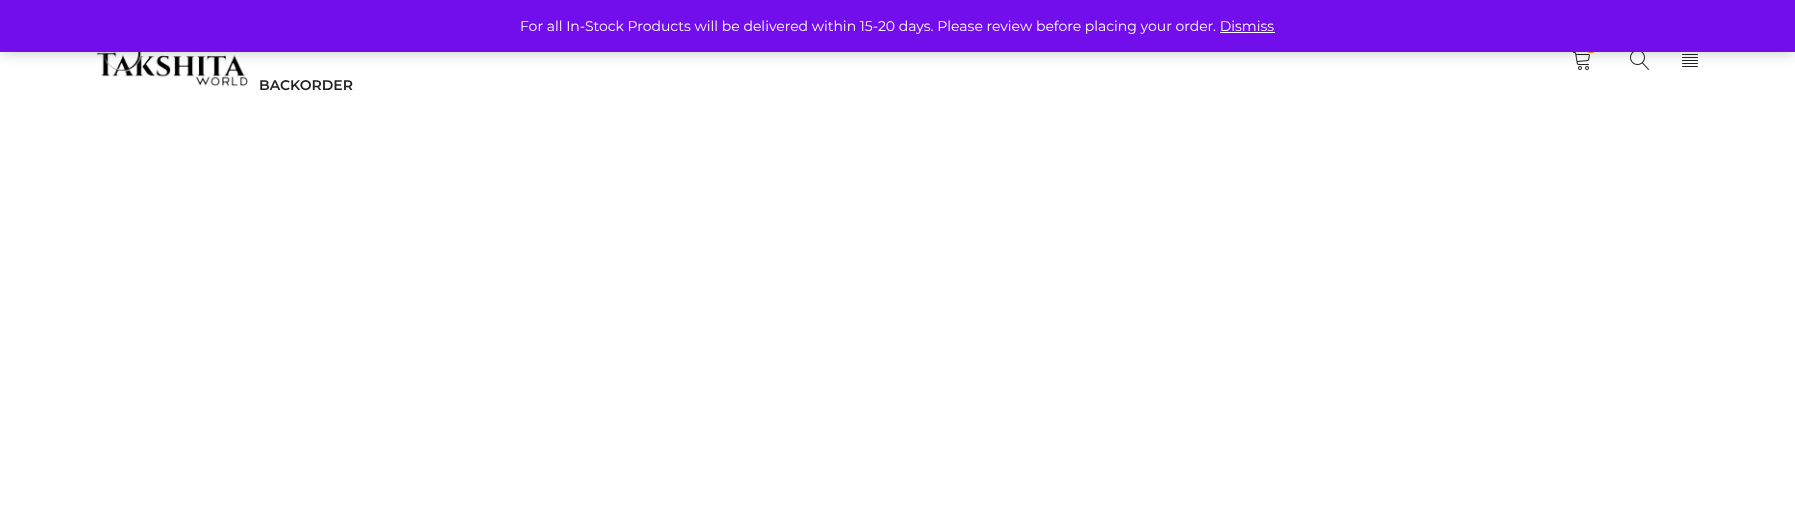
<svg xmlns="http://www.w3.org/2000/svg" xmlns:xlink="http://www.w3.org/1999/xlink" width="1795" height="507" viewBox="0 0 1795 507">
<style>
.cls-1{font:14px Montserrat;fill:#fcfbfe}
.cls-2{font:100 14px Montserrat;fill:#222222}
</style>
<rect width="100%" height="100%" fill="#ffffff"/>
<image xlink:href="image0.png" x="97" y="52" width="152" height="35"/>
<image xlink:href="image1.png" x="1573" y="52" width="17" height="18"/>
<circle fill="#f27e01" cx="1591" cy="44" r="9"/>
<image xlink:href="image2.png" x="1630" y="52" width="19" height="18"/>
<image xlink:href="image3.png" x="1682" y="54" width="16" height="13"/>
<rect fill="#000000" fill-opacity="0.2" filter="blur(7px)" x="0" y="1" width="1795" height="52"/>
<rect fill="#720eec" x="0" y="0" width="1795" height="52"/>
<rect fill="#fcfbfe" x="1220" y="32" width="55" height="1"/>
<text class="cls-1" x="520" y="31">For all In-Stock Products will be delivered within 15-20 days. Please review before placing your order. Dismiss</text>
<text class="cls-2" x="259" y="90">BACKORDER</text>
</svg>
